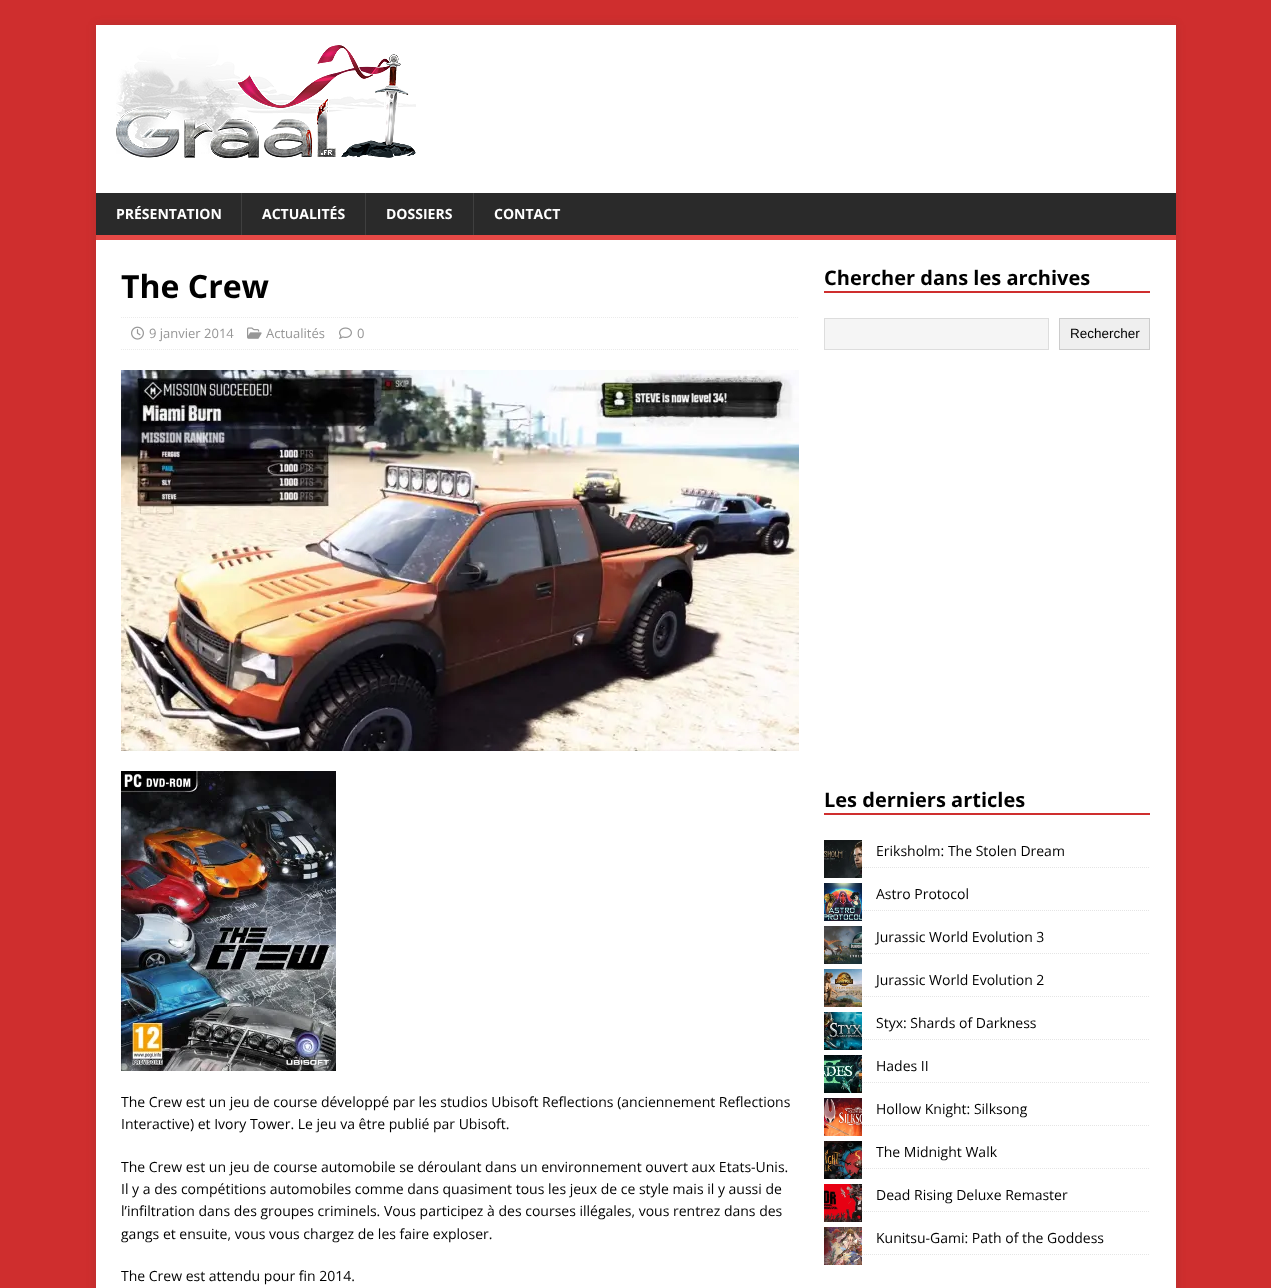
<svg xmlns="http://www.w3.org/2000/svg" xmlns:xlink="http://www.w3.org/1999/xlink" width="1271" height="1288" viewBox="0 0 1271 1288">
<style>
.cls-1{font:bold 14px Open Sans;fill:#ffffff}
.cls-2{font:bold 32px Open Sans;fill:#000000}
.cls-3{font:13px Open Sans;fill:#979797}
.cls-4{font:14px Open Sans;fill:#000000}
.cls-5{font:bold 20px Open Sans;fill:#000000}
.cls-6{font:13.5px Liberation Sans;fill:#000000}
</style>
<rect width="100%" height="100%" fill="#cf2e2e"/>
<rect fill="#323232" fill-opacity="0.17" filter="blur(5px)" x="96" y="25" width="1080" height="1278"/>
<rect fill="#ffffff" x="96" y="25" width="1080" height="168"/>
<image xlink:href="image0.png" x="116" y="45" width="300" height="114"/>
<rect fill="#2a2a2a" x="96" y="193" width="1080" height="42"/>
<rect fill="#e64946" x="96" y="235" width="1080" height="5"/>
<rect fill="#3f3f3f" x="241" y="193" width="1" height="42"/>
<rect fill="#3f3f3f" x="365" y="193" width="1" height="42"/>
<rect fill="#3f3f3f" x="473" y="193" width="1" height="42"/>
<rect fill="#ffffff" x="96" y="240" width="1080" height="1048"/>
<path fill="none" stroke="#ebebeb" stroke-dasharray="1 1" d="M121 317.5H799"/>
<path fill="none" stroke="#ebebeb" stroke-dasharray="1 1" d="M121 349.5H799"/>
<image xlink:href="image1.png" x="131" y="326" width="13" height="14"/>
<image xlink:href="image2.png" x="247" y="327" width="15" height="12"/>
<image xlink:href="image3.png" x="339" y="327" width="13" height="12"/>
<image xlink:href="image4.png" x="121" y="370" width="678" height="381"/>
<image xlink:href="image5.png" x="121" y="771" width="215" height="300"/>
<rect fill="#cf2e2e" x="824" y="291" width="326" height="2"/>
<rect fill="#f5f5f5" stroke="#dddddd" x="824.5" y="318.5" width="224" height="31"/>
<rect fill="#efefef" stroke="#cccccc" x="1059.5" y="318.5" width="90" height="31"/>
<rect fill="#cf2e2e" x="824" y="813" width="326" height="2"/>
<path fill="none" stroke="#e5e5e5" stroke-dasharray="1 1" d="M824 867.5H1150"/>
<image xlink:href="image6.png" x="824" y="840" width="38" height="38"/>
<path fill="none" stroke="#e5e5e5" stroke-dasharray="1 1" d="M824 910.5H1150"/>
<image xlink:href="image7.png" x="824" y="883" width="38" height="38"/>
<path fill="none" stroke="#e5e5e5" stroke-dasharray="1 1" d="M824 953.5H1150"/>
<image xlink:href="image8.png" x="824" y="926" width="38" height="38"/>
<path fill="none" stroke="#e5e5e5" stroke-dasharray="1 1" d="M824 996.5H1150"/>
<image xlink:href="image9.png" x="824" y="969" width="38" height="38"/>
<path fill="none" stroke="#e5e5e5" stroke-dasharray="1 1" d="M824 1039.5H1150"/>
<image xlink:href="image10.png" x="824" y="1012" width="38" height="38"/>
<path fill="none" stroke="#e5e5e5" stroke-dasharray="1 1" d="M824 1082.5H1150"/>
<image xlink:href="image11.png" x="824" y="1055" width="38" height="38"/>
<path fill="none" stroke="#e5e5e5" stroke-dasharray="1 1" d="M824 1125.5H1150"/>
<image xlink:href="image12.png" x="824" y="1098" width="38" height="38"/>
<path fill="none" stroke="#e5e5e5" stroke-dasharray="1 1" d="M824 1168.5H1150"/>
<image xlink:href="image13.png" x="824" y="1141" width="38" height="38"/>
<path fill="none" stroke="#e5e5e5" stroke-dasharray="1 1" d="M824 1211.5H1150"/>
<image xlink:href="image14.png" x="824" y="1184" width="38" height="38"/>
<path fill="none" stroke="#e5e5e5" stroke-dasharray="1 1" d="M824 1254.5H1150"/>
<image xlink:href="image15.png" x="824" y="1227" width="38" height="38"/>
<text class="cls-1" x="116" y="219">PRÉSENTATION</text>
<text class="cls-1" x="262" y="219">ACTUALITÉS</text>
<text class="cls-1" x="386" y="219">DOSSIERS</text>
<text class="cls-1" x="494" y="219">CONTACT</text>
<text class="cls-2" x="121" y="298">The Crew</text>
<text class="cls-3" x="149" y="338">9 janvier 2014</text>
<text class="cls-3" x="266" y="338">Actualités</text>
<text class="cls-3" x="357" y="338">0</text>
<text class="cls-4"><tspan x="121" y="1107">The Crew est un jeu de course développé par les studios Ubisoft Reflections (anciennement Reflections</tspan><tspan x="121" y="1129">Interactive) et Ivory Tower. Le jeu va être publié par Ubisoft.</tspan></text>
<text class="cls-4"><tspan x="121" y="1172">The Crew est un jeu de course automobile se déroulant dans un environnement ouvert aux Etats-Unis.</tspan><tspan x="121" y="1194">Il y a des compétitions automobiles comme dans quasiment tous les jeux de ce style mais il y aussi de</tspan><tspan x="121" y="1216">l’infiltration dans des groupes criminels. Vous participez à des courses illégales, vous rentrez dans des</tspan><tspan x="121" y="1239">gangs et ensuite, vous vous chargez de les faire exploser.</tspan></text>
<text class="cls-4" x="121" y="1281">The Crew est attendu pour fin 2014.</text>
<text class="cls-5" x="824" y="285">Chercher dans les archives</text>
<text class="cls-6" x="1070" y="338">Rechercher</text>
<text class="cls-5" x="824" y="807">Les derniers articles</text>
<text class="cls-4" x="876" y="856">Eriksholm: The Stolen Dream</text>
<text class="cls-4" x="876" y="899">Astro Protocol</text>
<text class="cls-4" x="876" y="942">Jurassic World Evolution 3</text>
<text class="cls-4" x="876" y="985">Jurassic World Evolution 2</text>
<text class="cls-4" x="876" y="1028">Styx: Shards of Darkness</text>
<text class="cls-4" x="876" y="1071">Hades II</text>
<text class="cls-4" x="876" y="1114">Hollow Knight: Silksong</text>
<text class="cls-4" x="876" y="1157">The Midnight Walk</text>
<text class="cls-4" x="876" y="1200">Dead Rising Deluxe Remaster</text>
<text class="cls-4" x="876" y="1243">Kunitsu-Gami: Path of the Goddess</text>
</svg>
